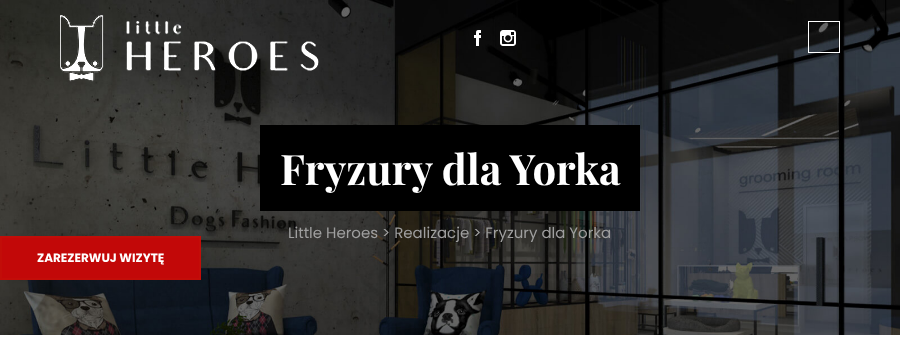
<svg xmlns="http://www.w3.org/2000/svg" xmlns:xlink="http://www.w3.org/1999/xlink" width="900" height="350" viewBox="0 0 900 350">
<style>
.cls-1{font:bold 42px Playfair Display;fill:#ffffff}
.cls-2{font:15px Poppins;fill:#9f9f9f}
.cls-3{font:bold 12px Poppins;fill:#ffffff}
</style>
<rect width="100%" height="100%" fill="#ffffff"/>
<image xlink:href="image3.png" x="0" y="0" width="900" height="335"/>
<image xlink:href="image0.png" x="60" y="15" width="259" height="67"/>
<image xlink:href="image1.png" x="474" y="30" width="7" height="16"/>
<image xlink:href="image2.png" x="500" y="30" width="16" height="16"/>
<rect fill="none" stroke="#ffffff" x="808.5" y="21.5" width="31" height="31"/>
<rect fill="#000000" x="260" y="125" width="380" height="86"/>
<rect fill="#c20808" stroke="#c20d08" stroke-width="2" x="1" y="237" width="199" height="42"/>
<text class="cls-1" x="280" y="185">Fryzury dla Yorka</text>
<text class="cls-2" x="288" y="238">Little Heroes &gt; Realizacje &gt; Fryzury dla Yorka</text>
<text class="cls-3" x="37" y="262">ZAREZERWUJ WIZYTĘ</text>
</svg>
